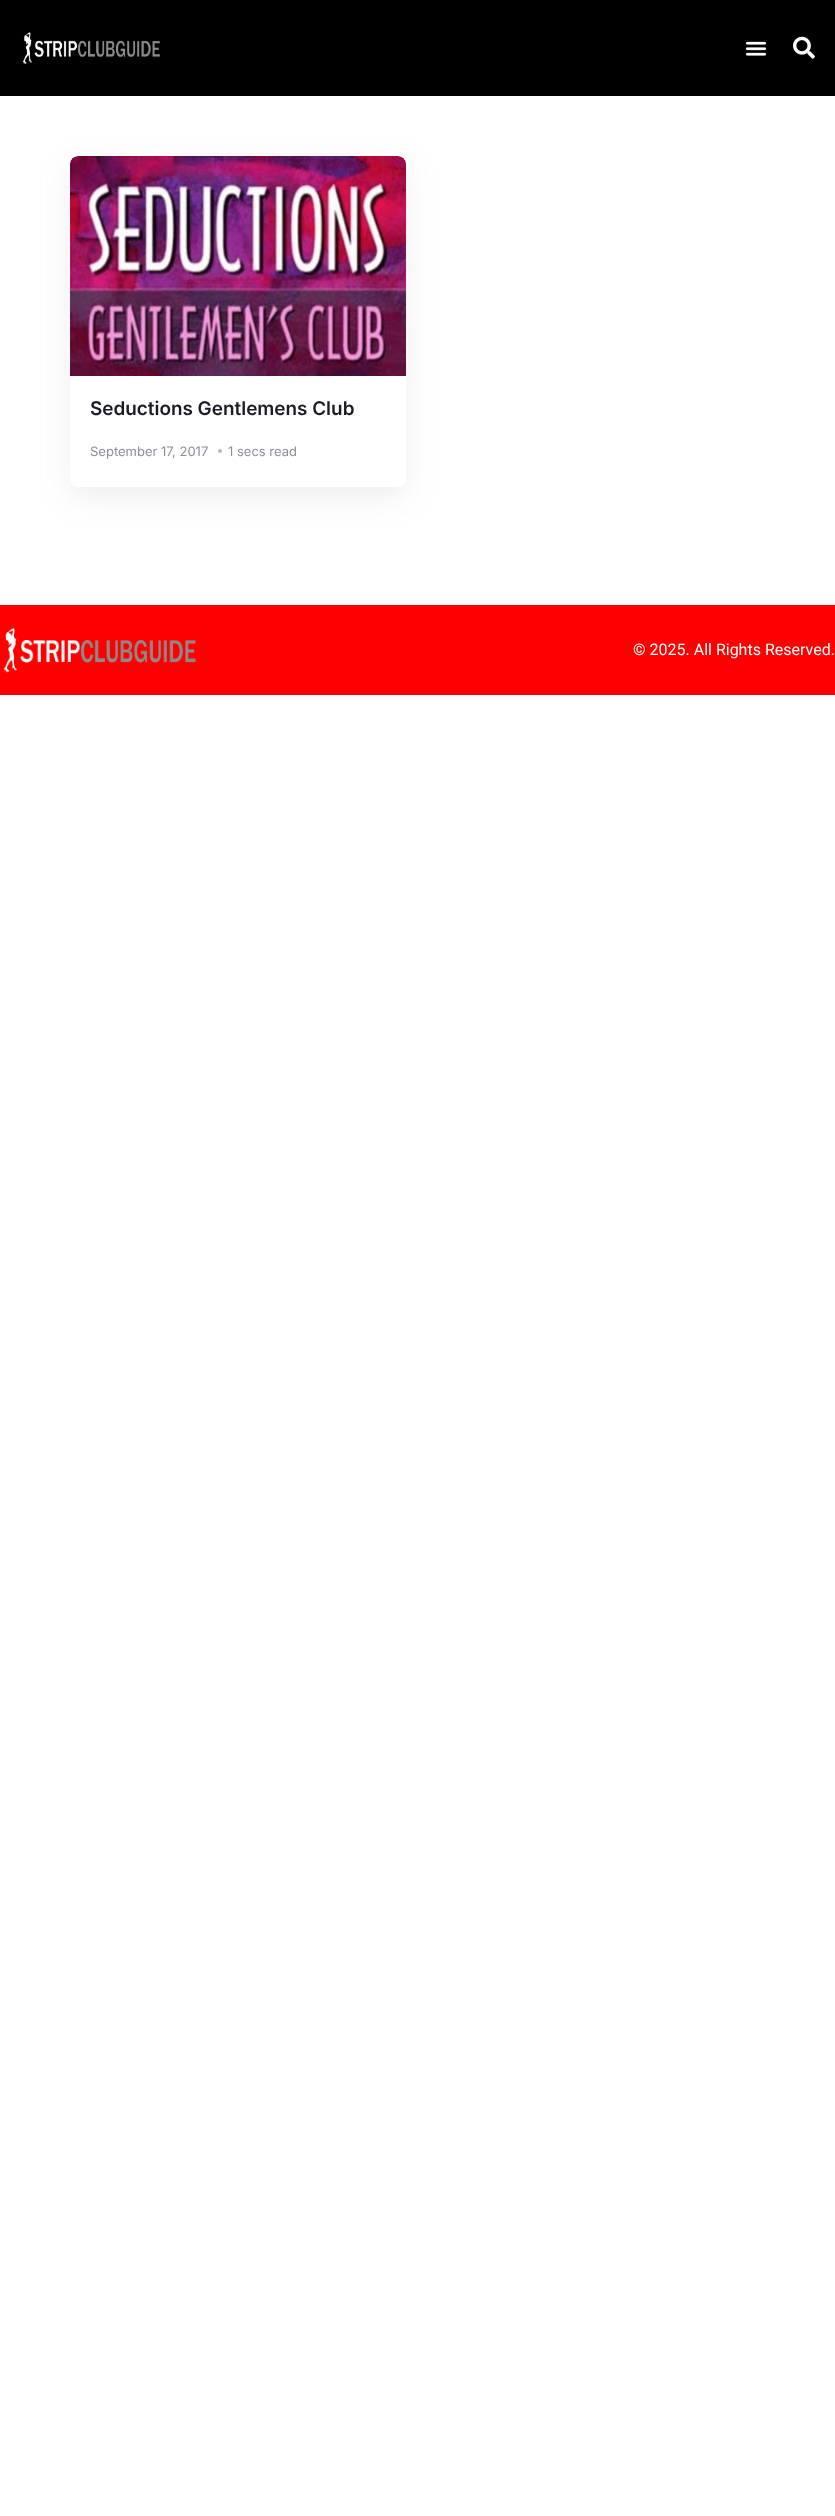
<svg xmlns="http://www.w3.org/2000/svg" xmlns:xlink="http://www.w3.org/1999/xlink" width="835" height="2516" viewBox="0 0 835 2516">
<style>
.cls-1{font:600 18.9px Inter;fill:#1a1b29}
.cls-2{font:13px Inter;fill:#8f8e9f}
.cls-3{font:16px Roboto;fill:#ffffff}
</style>
<rect width="100%" height="100%" fill="#ffffff"/>
<rect fill="#000000" x="0" y="0" width="835" height="96"/>
<image xlink:href="image0.png" x="22" y="32" width="138" height="32"/>
<image xlink:href="image1.png" x="745" y="41" width="22" height="15"/>
<image xlink:href="image2.png" x="793" y="36" width="22" height="23"/>
<rect fill="#8f8e9f" fill-opacity="0.15" filter="blur(15px)" x="70" y="166" width="336" height="331" rx="8"/>
<image xlink:href="image3.png" x="70" y="156" width="336" height="220"/>
<path fill="#ffffff" d="M70 376H406V479C406 483.5 402.5 487 398 487H78C73.5 487 70 483.5 70 479Z"/>
<circle fill="#b7b7c5" cx="220" cy="451" r="2"/>
<rect fill="#ff0000" x="0" y="605" width="835" height="90"/>
<image xlink:href="image4.png" x="3" y="627" width="193" height="46"/>
<text class="cls-1" x="90" y="415">Seductions Gentlemens Club</text>
<text class="cls-2" x="90" y="456">September 17, 2017</text>
<text class="cls-2" x="228" y="456">1 secs read</text>
<text class="cls-3" x="633" y="655">© 2025. All Rights Reserved.</text>
</svg>
